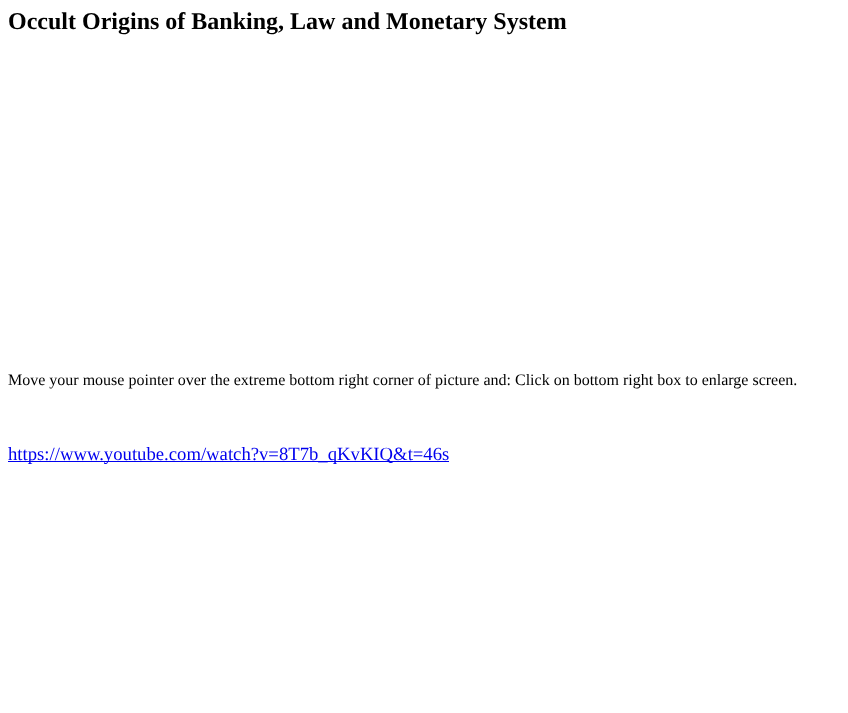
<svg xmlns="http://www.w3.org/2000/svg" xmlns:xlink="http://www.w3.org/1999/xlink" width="848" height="713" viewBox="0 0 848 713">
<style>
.cls-1{font:bold 24px Liberation Serif;fill:#000000}
.cls-2{font:16px Liberation Serif;fill:#000000}
.cls-3{font:18.7px Liberation Serif;fill:#0000ee}
</style>
<rect width="100%" height="100%" fill="#ffffff"/>
<rect fill="#0000ee" x="8" y="461" width="441" height="1"/>
<text class="cls-1" x="8" y="29">Occult Origins of Banking, Law and Monetary System</text>
<text class="cls-2" x="8" y="385">Move your mouse pointer over the extreme bottom right corner of picture and: Click on bottom right box to enlarge screen.</text>
<text class="cls-3" x="8" y="460">https://www.youtube.com/watch?v=8T7b_qKvKIQ&amp;t=46s</text>
</svg>
